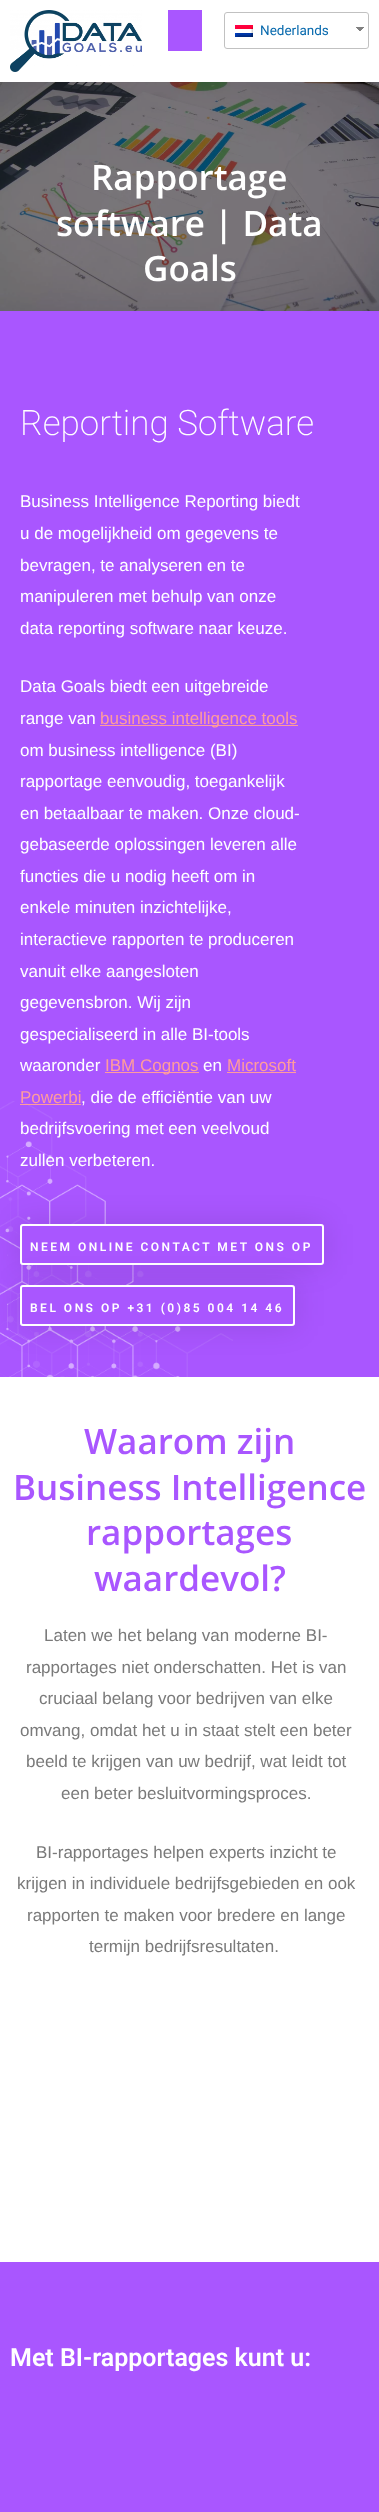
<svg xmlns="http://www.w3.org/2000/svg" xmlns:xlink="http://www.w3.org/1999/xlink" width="379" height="2512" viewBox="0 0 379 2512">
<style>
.cls-1{font:13.5px Roboto;fill:#0769ad}
.cls-2{font:600 35px Open Sans;fill:#ffffff}
.cls-3{font:200 35px Roboto;fill:#ffffff}
.cls-4{font:17px Liberation Sans;fill:#ffffff}
.cls-5{font:17px Liberation Sans;fill:#ff9c9c}
.cls-6{font:600 12px Roboto;letter-spacing:2.5px;fill:#ffffff}
.cls-7{font:600 35px Open Sans;fill:#a956ff}
.cls-8{font:17px Liberation Sans;fill:#7a7a7a}
.cls-9{font:600 25px Roboto;fill:#ffffff}
</style>
<defs>
<linearGradient id="g1" gradientUnits="userSpaceOnUse" x1="360" y1="27" x2="365" y2="32"><stop offset="0.5" stop-color="#808080"/><stop offset="0.5" stop-color="#ffffff"/></linearGradient>
<linearGradient id="g2" gradientUnits="userSpaceOnUse" x1="355" y1="32" x2="360" y2="27"><stop offset="0.5" stop-color="#ffffff"/><stop offset="0.5" stop-color="#808080"/></linearGradient>
</defs>
<rect width="100%" height="100%" fill="#ffffff"/>
<image xlink:href="image0.png" x="10" y="10" width="132" height="62"/>
<rect fill="#a956ff" x="168" y="10" width="34" height="41"/>
<rect fill="url(#g1)" x="360" y="27" width="5" height="4"/>
<rect fill="url(#g2)" x="355" y="27" width="5" height="4"/>
<rect fill="none" stroke="#c1c1c1" x="224.5" y="12.5" width="144" height="36" rx="2.5"/>
<image xlink:href="image1.png" x="235" y="25" width="18" height="12"/>
<image xlink:href="image2.png" x="0" y="82" width="379" height="229"/>
<rect fill="#a956ff" x="0" y="311" width="379" height="1066"/>
<rect fill="#ff9c9c" x="100" y="725" width="198" height="1"/>
<rect fill="#ff9c9c" x="105" y="1072" width="94" height="1"/>
<rect fill="#ff9c9c" x="227" y="1072" width="69" height="1"/>
<image xlink:href="image3.png" x="0" y="1101" width="233" height="276"/>
<rect fill="#ff9c9c" x="20" y="1104" width="61" height="1"/>
<rect fill="#000000" fill-opacity="0.11" filter="blur(15px)" x="20" y="1224" width="304" height="41" rx="3"/>
<rect fill="#a956ff" stroke="#ffffff" stroke-width="2" x="21" y="1225" width="302" height="39" rx="2"/>
<rect fill="#000000" fill-opacity="0.11" filter="blur(15px)" x="20" y="1285" width="275" height="41" rx="3"/>
<rect fill="#a956ff" stroke="#ffffff" stroke-width="2" x="21" y="1286" width="273" height="39" rx="2"/>
<rect fill="#a956ff" x="0" y="2262" width="379" height="250"/>
<text class="cls-1" x="260" y="35">Nederlands</text>
<text class="cls-2" x="91" y="190">Rapportage</text>
<text class="cls-2" x="56" y="236">software | Data</text>
<text class="cls-2" x="143" y="281">Goals</text>
<text class="cls-3" x="20" y="435">Reporting Software</text>
<text class="cls-4"><tspan x="20" y="507">Business Intelligence Reporting biedt</tspan><tspan x="20" y="539">u de mogelijkheid om gegevens te</tspan><tspan x="20" y="571">bevragen, te analyseren en te</tspan><tspan x="20" y="602">manipuleren met behulp van onze</tspan><tspan x="20" y="634">data reporting software naar keuze.</tspan></text>
<text class="cls-4"><tspan x="20" y="692">Data Goals biedt een uitgebreide</tspan><tspan x="20" y="724">range van</tspan></text>
<text class="cls-5" x="100" y="724">business intelligence tools</text>
<text class="cls-4"><tspan x="20" y="756">om business intelligence (BI)</tspan><tspan x="20" y="787">rapportage eenvoudig, toegankelijk</tspan><tspan x="20" y="819">en betaalbaar te maken. Onze cloud-</tspan><tspan x="20" y="850">gebaseerde oplossingen leveren alle</tspan><tspan x="20" y="882">functies die u nodig heeft om in</tspan><tspan x="20" y="913">enkele minuten inzichtelijke,</tspan><tspan x="20" y="945">interactieve rapporten te produceren</tspan><tspan x="20" y="977">vanuit elke aangesloten</tspan><tspan x="20" y="1008">gegevensbron. Wij zijn</tspan><tspan x="20" y="1040">gespecialiseerd in alle BI-tools</tspan><tspan x="20" y="1071">waaronder</tspan></text>
<text class="cls-5" x="105" y="1071">IBM Cognos</text>
<text class="cls-4" x="203" y="1071">en</text>
<text class="cls-5" x="227" y="1071">Microsoft</text>
<text class="cls-5" x="20" y="1103">Powerbi</text>
<text class="cls-4" x="81" y="1103">, die de efficiëntie van uw</text>
<text class="cls-4"><tspan x="20" y="1134">bedrijfsvoering met een veelvoud</tspan><tspan x="20" y="1166">zullen verbeteren.</tspan></text>
<text class="cls-6" x="30" y="1251">NEEM ONLINE CONTACT MET ONS OP</text>
<text class="cls-6" x="30" y="1312">BEL ONS OP +31 (0)85 004 14 46</text>
<text class="cls-7" x="84" y="1454">Waarom zijn</text>
<text class="cls-7" x="13" y="1500">Business Intelligence</text>
<text class="cls-7" x="86" y="1545">rapportages</text>
<text class="cls-7" x="94" y="1591">waardevol?</text>
<text class="cls-8" x="44" y="1641">Laten we het belang van moderne BI-</text>
<text class="cls-8" x="26" y="1673">rapportages niet onderschatten. Het is van</text>
<text class="cls-8" x="39" y="1704">cruciaal belang voor bedrijven van elke</text>
<text class="cls-8" x="20" y="1736">omvang, omdat het u in staat stelt een beter</text>
<text class="cls-8" x="26" y="1767">beeld te krijgen van uw bedrijf, wat leidt tot</text>
<text class="cls-8" x="61" y="1799">een beter besluitvormingsproces.</text>
<text class="cls-8" x="36" y="1858">BI-rapportages helpen experts inzicht te</text>
<text class="cls-8" x="17" y="1889">krijgen in individuele bedrijfsgebieden en ook</text>
<text class="cls-8" x="27" y="1921">rapporten te maken voor bredere en lange</text>
<text class="cls-8" x="89" y="1952">termijn bedrijfsresultaten.</text>
<text class="cls-9" x="10" y="2366">Met BI-rapportages kunt u:</text>
</svg>
